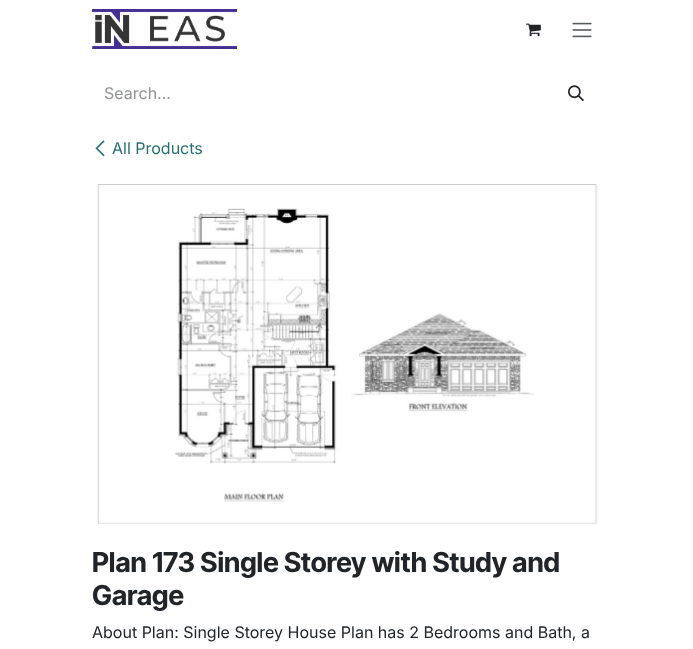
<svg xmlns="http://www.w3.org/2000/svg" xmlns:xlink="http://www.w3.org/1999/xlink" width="693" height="649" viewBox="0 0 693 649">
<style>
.cls-1{font:16px Inter;fill:#909294}
.cls-2{font:16px Inter;fill:#26706e}
.cls-3{font:bold 27.4px Inter Tight;fill:#212529}
.cls-4{font:16px Inter;fill:#212529}
</style>
<rect width="100%" height="100%" fill="#ffffff"/>
<image xlink:href="image0.png" x="92" y="9" width="145" height="40"/>
<image xlink:href="image1.png" x="526" y="23" width="15" height="14"/>
<image xlink:href="image2.png" x="572" y="22" width="20" height="16"/>
<image xlink:href="image3.png" x="568" y="85" width="16" height="17"/>
<image xlink:href="image4.png" x="95" y="140" width="10" height="17"/>
<image xlink:href="image5.png" x="97" y="184" width="501" height="340"/>
<text class="cls-1" x="104" y="99">Search...</text>
<text class="cls-2" x="112" y="154">All Products</text>
<text class="cls-3"><tspan x="92" y="572">Plan 173 Single Storey with Study and</tspan><tspan x="92" y="605">Garage</tspan></text>
<text class="cls-4" x="92" y="638">About Plan: Single Storey House Plan has 2 Bedrooms and Bath, a</text>
</svg>
